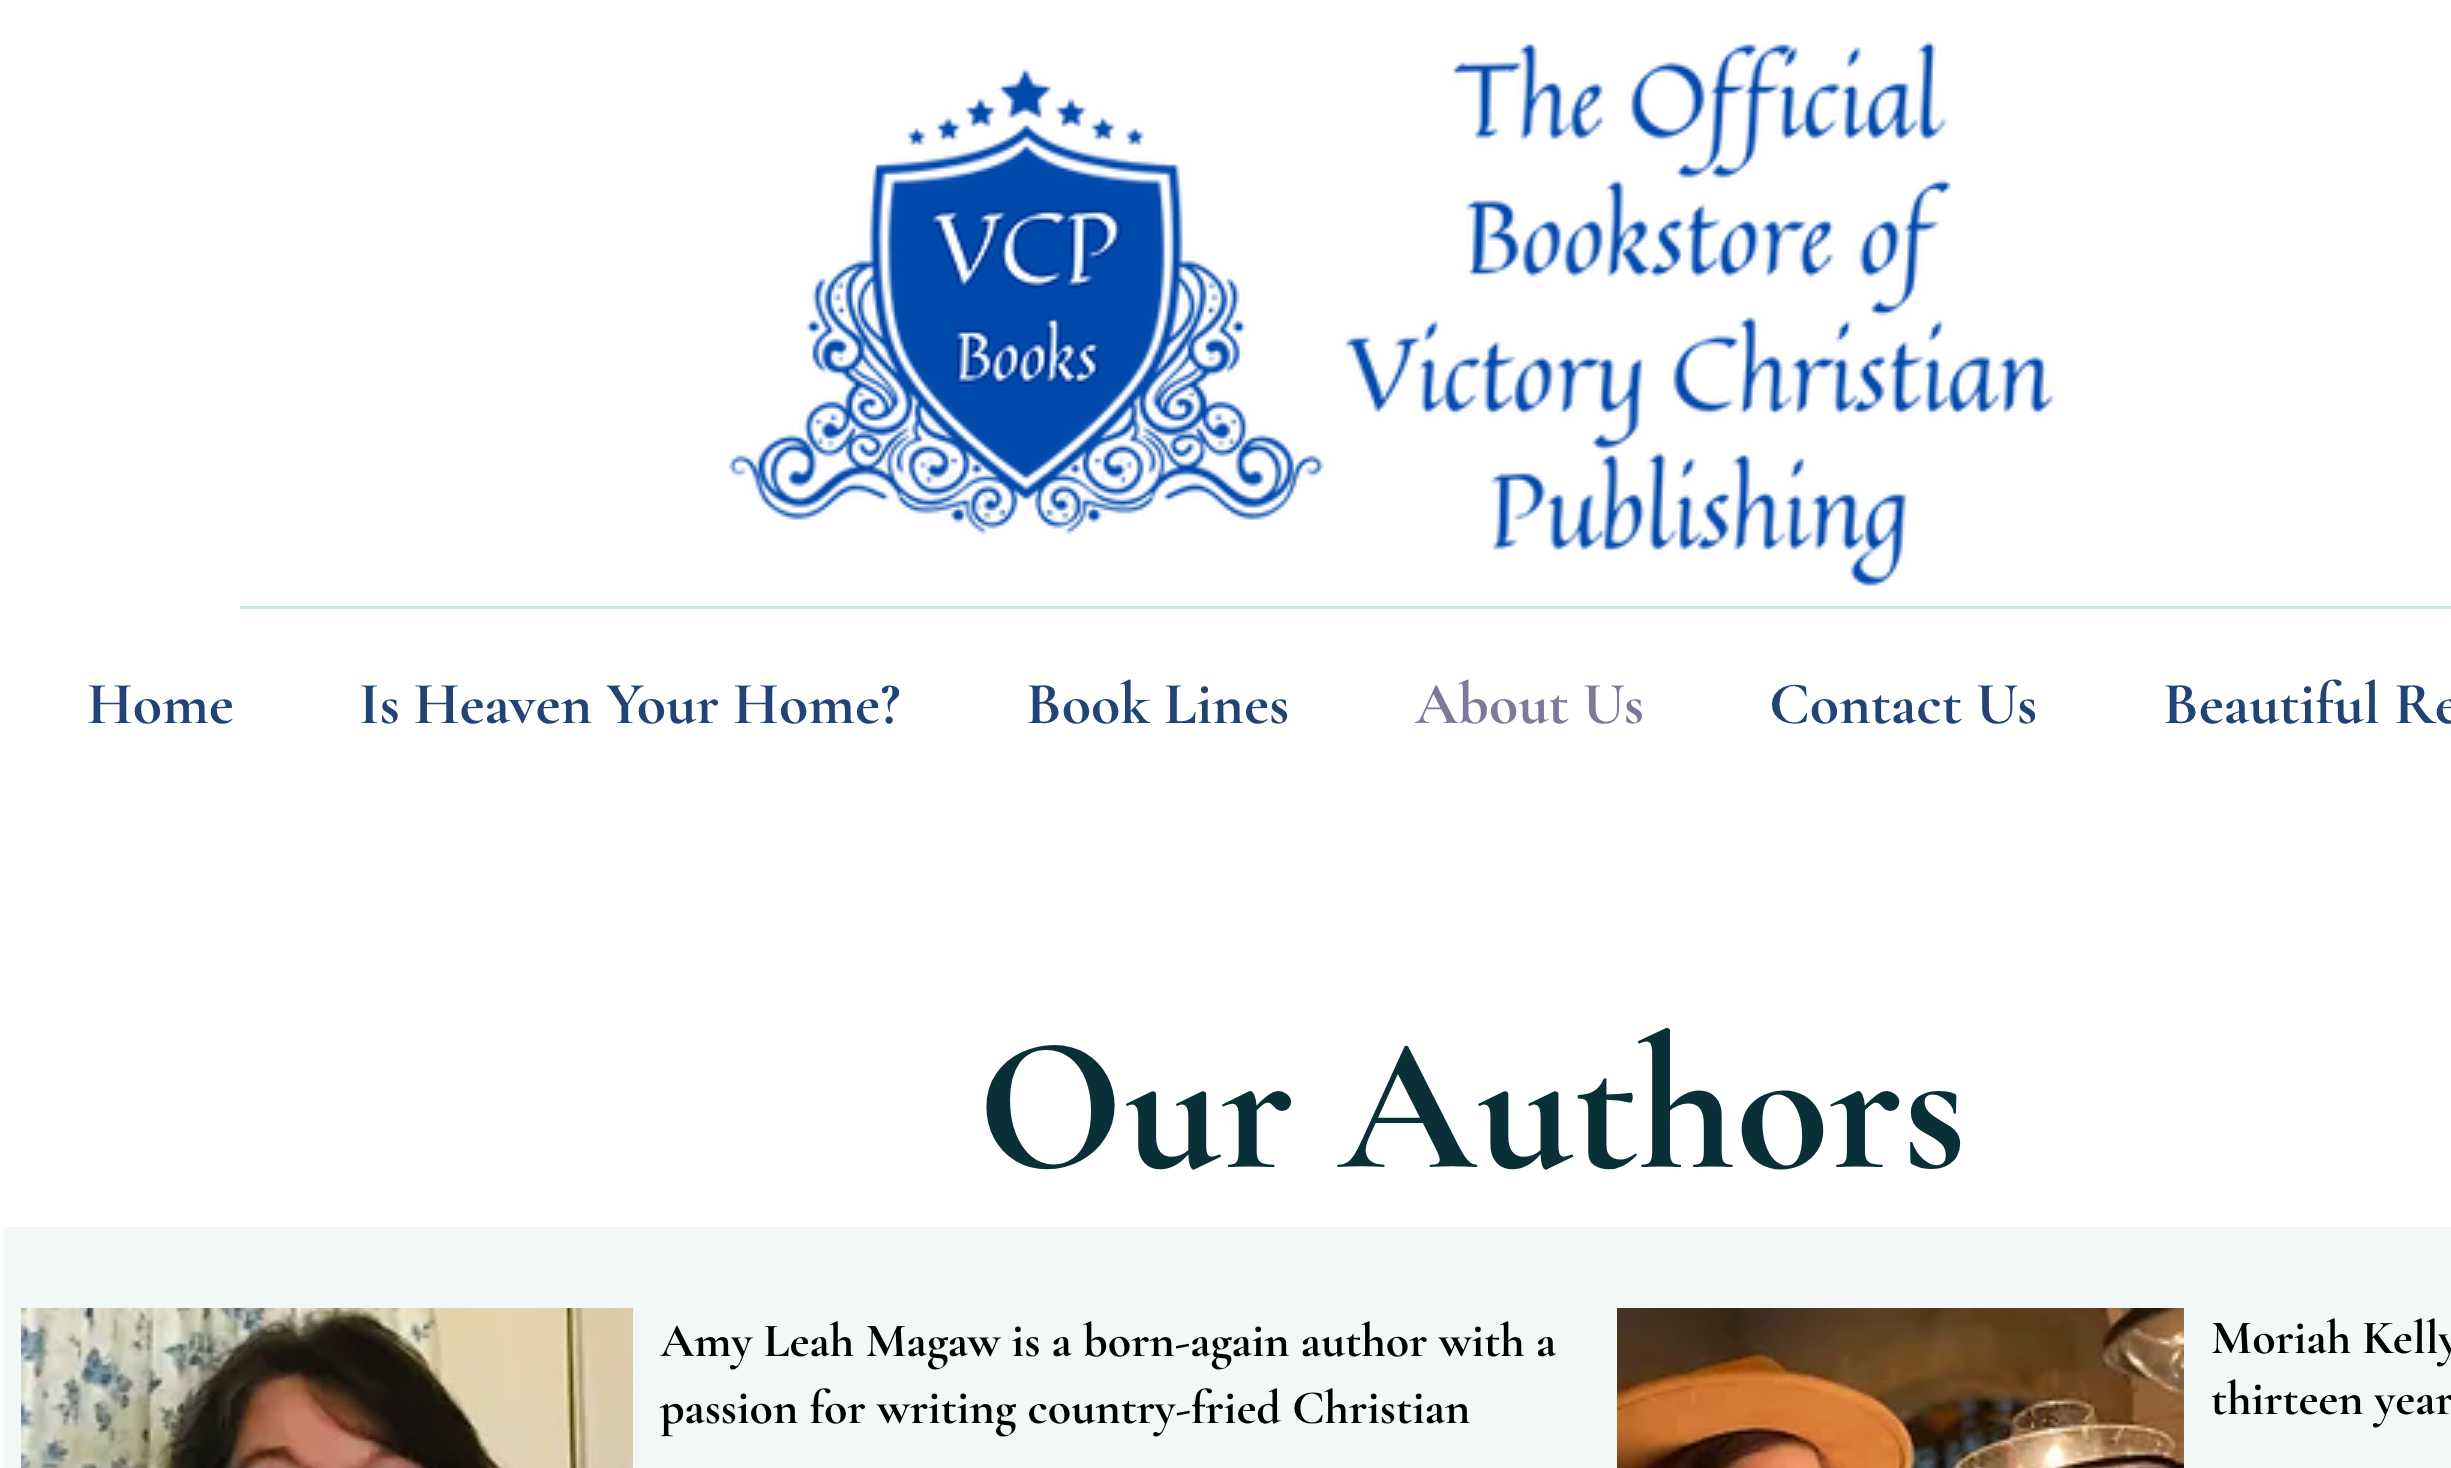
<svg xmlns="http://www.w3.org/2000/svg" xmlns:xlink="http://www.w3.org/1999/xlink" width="2451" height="1468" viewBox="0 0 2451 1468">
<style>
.cls-1{font:bold 60px Cormorant Garamond;fill:#214375}
.cls-2{font:bold 60px Cormorant Garamond;fill:#7f7999}
.cls-3{font:bold 192px Cormorant Garamond;fill:#092f37}
.cls-4{font:bold 48px Cormorant Garamond;fill:#000000}
</style>
<rect width="100%" height="100%" fill="#ffffff"/>
<image xlink:href="image0.png" x="728" y="41" width="1328" height="545"/>
<rect fill="#cce5e9" x="240" y="606" width="2211" height="3"/>
<rect fill="#f2f8f7" x="3" y="1227" width="2448" height="241"/>
<image xlink:href="image1.png" x="21" y="1308" width="612" height="160"/>
<image xlink:href="image2.png" x="1617" y="1308" width="567" height="160"/>
<text class="cls-1" x="87" y="723">Home</text>
<text class="cls-1" x="359" y="723">Is Heaven Your Home?</text>
<text class="cls-1" x="1026" y="723">Book Lines</text>
<text class="cls-2" x="1415" y="723">About Us</text>
<text class="cls-1" x="1769" y="723">Contact Us</text>
<text class="cls-1" x="2163" y="723">Beautiful Re</text>
<text class="cls-3" x="977" y="1167">Our Authors</text>
<text class="cls-4"><tspan x="660" y="1356">Amy Leah Magaw is a born-again author with a</tspan><tspan x="660" y="1423">passion for writing country-fried Christian</tspan></text>
<text class="cls-4"><tspan x="2211" y="1353">Moriah Kelly</tspan><tspan x="2211" y="1414">thirteen year</tspan></text>
</svg>
